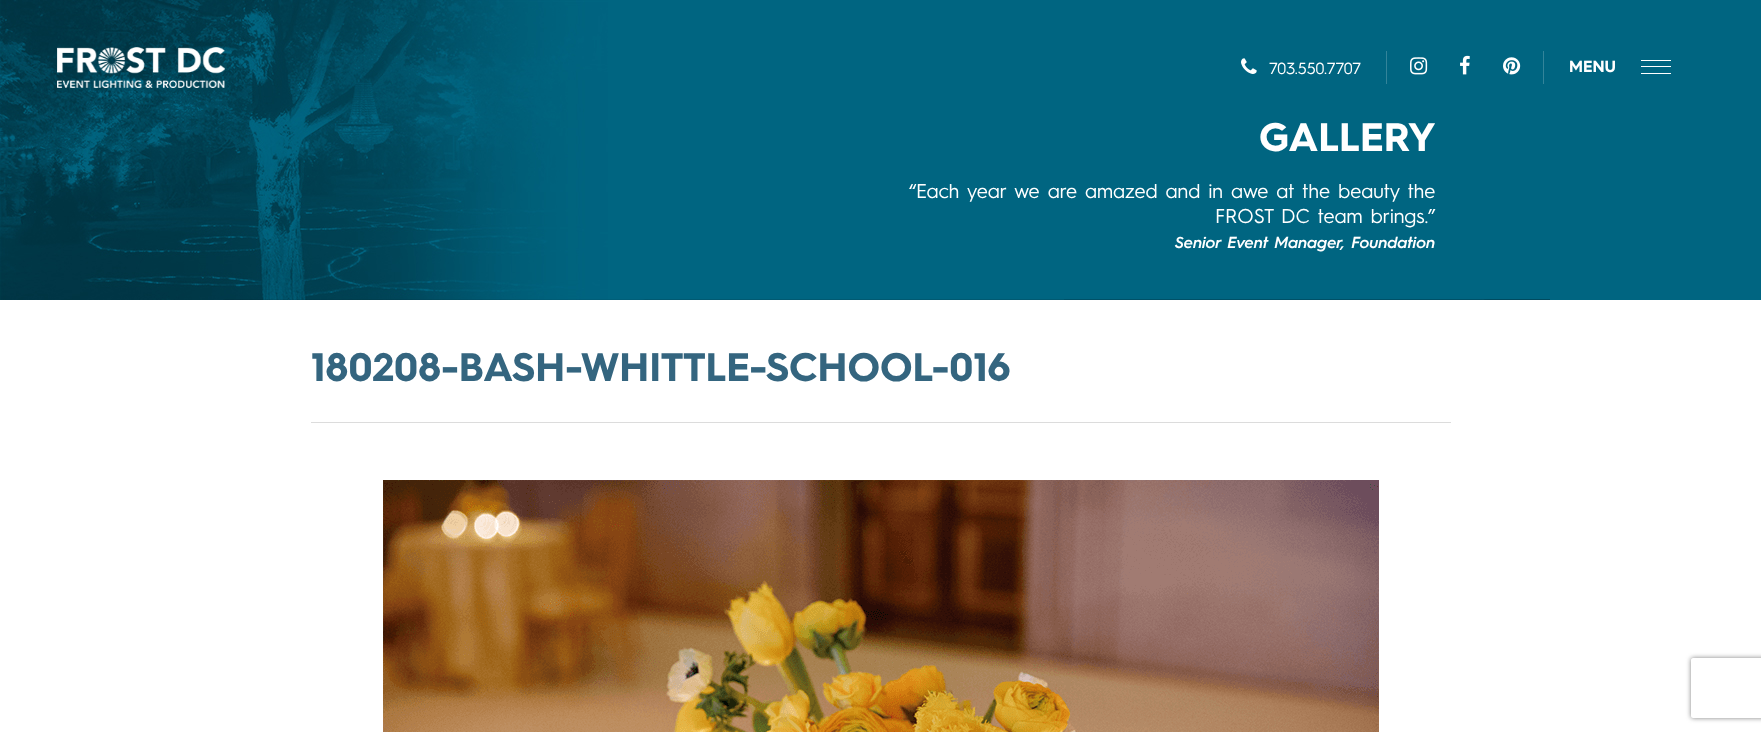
<svg xmlns="http://www.w3.org/2000/svg" xmlns:xlink="http://www.w3.org/1999/xlink" width="1761" height="732" viewBox="0 0 1761 732">
<style>
.cls-1{font:16px 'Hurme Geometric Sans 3';fill:#ffffff}
.cls-2{font:bold 16px 'Hurme Geometric Sans 3';fill:#ffffff}
.cls-3{font:bold 40px 'Hurme Geometric Sans 3';fill:#ffffff}
.cls-4{font:20px 'Hurme Geometric Sans 3';fill:#ffffff}
.cls-5{font:italic 600 16px 'Hurme Geometric Sans 3';fill:#ffffff}
.cls-6{font:bold 40px 'Hurme Geometric Sans 3';fill:#34657f}
</style>
<defs>
<clipPath id="clip1"><path d="M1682 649H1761V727H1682ZM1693 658H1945C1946 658 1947 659 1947 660V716C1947 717 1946 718 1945 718H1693C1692 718 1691 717 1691 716V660C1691 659 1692 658 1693 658Z" clip-rule="evenodd"/></clipPath>
</defs>
<rect width="100%" height="100%" fill="#ffffff"/>
<image xlink:href="image5.png" x="0" y="0" width="1550" height="300"/>
<image xlink:href="image0.png" x="57" y="47" width="168" height="41"/>
<image xlink:href="image1.png" x="1241" y="58" width="16" height="16"/>
<rect fill="#33849a" x="1386" y="51" width="1" height="33"/>
<image xlink:href="image2.png" x="1410" y="57" width="18" height="18"/>
<image xlink:href="image3.png" x="1460" y="55" width="10" height="20"/>
<image xlink:href="image4.png" x="1503" y="57" width="18" height="18"/>
<rect fill="#33849a" x="1543" y="51" width="1" height="33"/>
<rect fill="#006581" x="1550" y="0" width="211" height="300"/>
<rect fill="#ffffff" x="1641" y="60" width="30" height="1"/>
<rect fill="#ffffff" x="1641" y="66" width="30" height="1"/>
<rect fill="#ffffff" x="1641" y="73" width="30" height="1"/>
<rect fill="#dcdcdc" x="311" y="422" width="1140" height="1"/>
<image xlink:href="image6.png" x="383" y="480" width="996" height="252"/>
<g clip-path="url(#clip1)">
<rect fill="#808080" filter="blur(2.5px)" x="1691" y="658" width="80" height="60" rx="2"/>
</g>
<text class="cls-1" x="1269" y="74">703.550.7707</text>
<text class="cls-2" x="1569" y="72">MENU</text>
<text class="cls-3" x="1259" y="151">GALLERY</text>
<text class="cls-4" x="909" y="198">“Each year we are amazed and in awe at the beauty the</text>
<text class="cls-4" x="1215" y="223">FROST DC team brings.”</text>
<text class="cls-5" x="1175" y="248">Senior Event Manager, Foundation</text>
<text class="cls-6" x="311" y="381">180208-BASH-WHITTLE-SCHOOL-016</text>
</svg>
